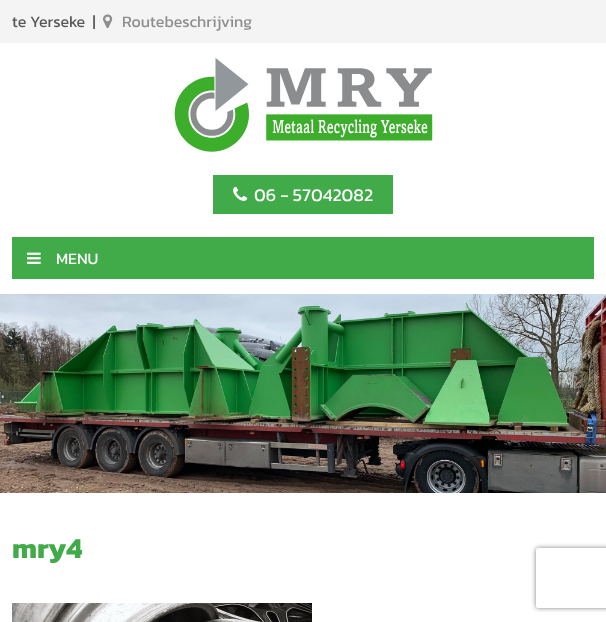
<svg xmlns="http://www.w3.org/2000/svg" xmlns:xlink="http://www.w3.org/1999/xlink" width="606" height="622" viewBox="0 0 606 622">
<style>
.cls-1{font:16px Kanit;fill:#585858}
.cls-2{font:16px Kanit;fill:#8e8e91}
.cls-3{font:18px Kanit;fill:#ffffff}
.cls-4{font:16px Kanit;fill:#ffffff}
.cls-5{font:bold 29px Kanit;fill:#42ab49}
</style>
<defs>
<clipPath id="clip1"><path d="M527 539H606V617H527ZM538 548H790C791 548 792 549 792 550V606C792 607 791 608 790 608H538C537 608 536 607 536 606V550C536 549 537 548 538 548Z" clip-rule="evenodd"/></clipPath>
</defs>
<rect width="100%" height="100%" fill="#ffffff"/>
<rect fill="#f4f4f4" x="0" y="0" width="606" height="43"/>
<image xlink:href="image0.png" x="103" y="14" width="10" height="15"/>
<image xlink:href="image1.png" x="174" y="58" width="259" height="94"/>
<rect fill="#42ab49" x="213" y="175" width="180" height="39"/>
<image xlink:href="image2.png" x="233" y="186" width="15" height="15"/>
<rect fill="#42ab49" x="12" y="237" width="582" height="42"/>
<image xlink:href="image3.png" x="27" y="252" width="14" height="12"/>
<image xlink:href="image4.png" x="0" y="294" width="606" height="199"/>
<image xlink:href="image5.png" x="12" y="603" width="300" height="19"/>
<g clip-path="url(#clip1)">
<rect fill="#808080" filter="blur(2.5px)" x="536" y="548" width="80" height="60" rx="2"/>
</g>
<text class="cls-1" xml:space="preserve" x="12" y="27">te Yerseke  |</text>
<text class="cls-2" x="122" y="27">Routebeschrijving</text>
<text class="cls-3" x="254" y="201">06 - 57042082</text>
<text class="cls-4" x="56" y="264">MENU</text>
<text class="cls-5" x="12" y="558">mry4</text>
</svg>
